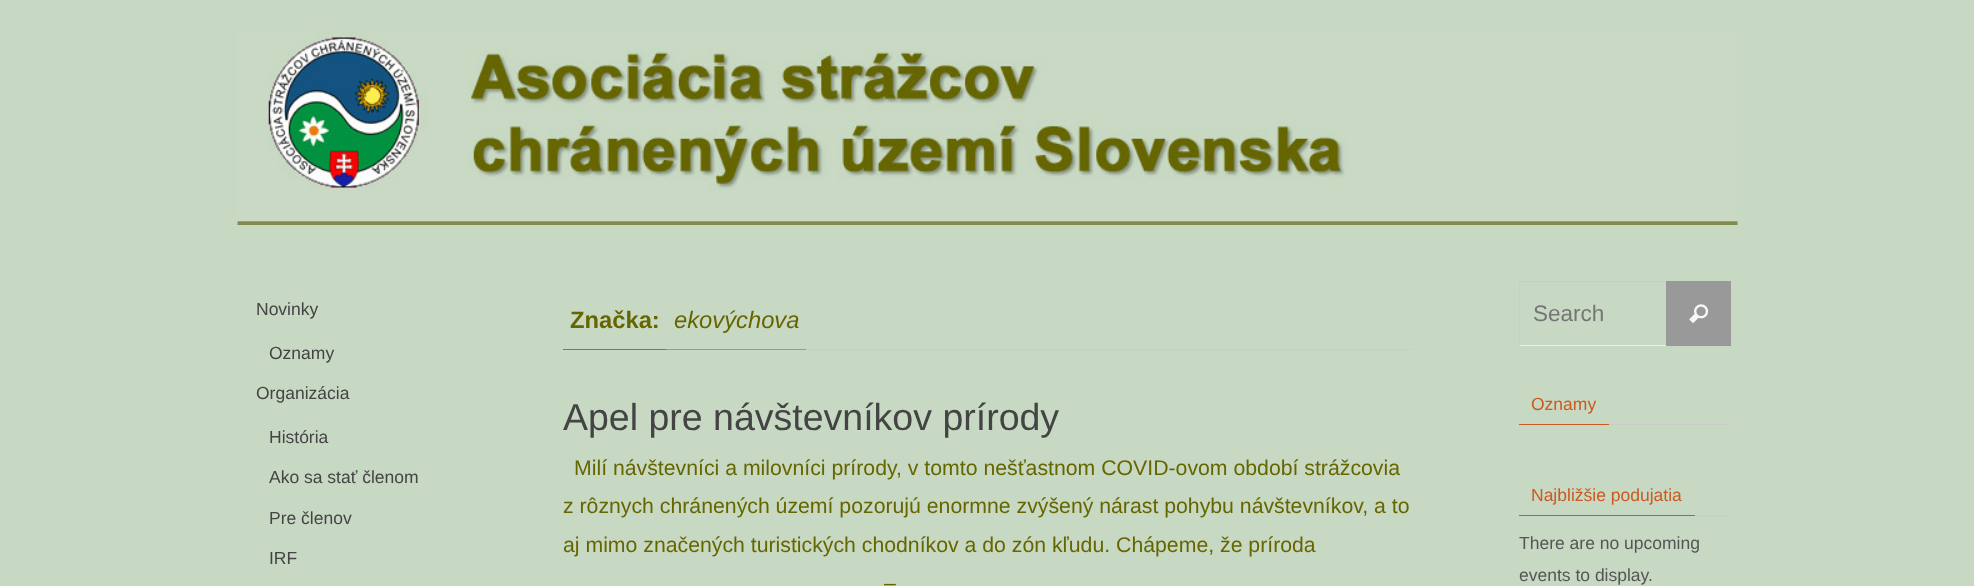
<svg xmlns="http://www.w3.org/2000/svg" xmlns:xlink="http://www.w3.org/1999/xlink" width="1974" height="586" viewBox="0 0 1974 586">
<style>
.cls-1{font:17.5px Liberation Sans;fill:#444444}
.cls-2{font:bold 23.75px Liberation Sans;fill:#666600}
.cls-3{font:italic 23.75px Liberation Sans;fill:#666600}
.cls-4{font:37.5px Liberation Sans;fill:#444444}
.cls-5{font:21.25px Liberation Sans;fill:#666600}
.cls-6{font:22.5px Liberation Sans;fill:#757575}
.cls-7{font:17.5px Liberation Sans;fill:#cb5920}
.cls-8{font:17.5px Liberation Sans;fill:#555555}
</style>
<rect width="100%" height="100%" fill="#c8d9c3"/>
<image xlink:href="image0.png" x="237" y="30" width="1501" height="195"/>
<rect fill="#cccccc" x="806" y="349" width="607" height="1"/>
<rect fill="#cb5920" x="563" y="349" width="103" height="1"/>
<rect fill="#999999" x="666" y="349" width="140" height="1"/>
<rect fill="#cccccc" x="1519" y="281" width="147" height="1"/>
<rect fill="#eeeeee" x="1519" y="345" width="147" height="1"/>
<rect fill="#cccccc" x="1519" y="281" width="1" height="65"/>
<rect fill="#999999" x="1666" y="281" width="65" height="65"/>
<image xlink:href="image1.png" x="1689" y="304" width="20" height="20"/>
<rect fill="#cccccc" x="1609" y="424" width="122" height="1"/>
<rect fill="#cb5920" x="1519" y="424" width="90" height="1"/>
<rect fill="#cccccc" x="1695" y="515" width="36" height="1"/>
<rect fill="#cb5920" x="1519" y="515" width="176" height="1"/>
<text class="cls-1" x="256" y="315">Novinky</text>
<text class="cls-1" x="269" y="359">Oznamy</text>
<text class="cls-1" x="256" y="399">Organizácia</text>
<text class="cls-1" x="269" y="443">História</text>
<text class="cls-1" x="269" y="483">Ako sa stať členom</text>
<text class="cls-1" x="269" y="524">Pre členov</text>
<text class="cls-1" x="269" y="564">IRF</text>
<text class="cls-2" x="570" y="328">Značka:</text>
<text class="cls-3" x="674" y="328">ekovýchova</text>
<text class="cls-4" x="563" y="430">Apel pre návštevníkov prírody</text>
<text class="cls-5" x="574" y="475">Milí návštevníci a milovníci prírody, v tomto nešťastnom COVID-ovom období strážcovia</text>
<text class="cls-5"><tspan x="563" y="513">z rôznych chránených území pozorujú enormne zvýšený nárast pohybu návštevníkov, a to</tspan><tspan x="563" y="552">aj mimo značených turistických chodníkov a do zón kľudu. Chápeme, že príroda</tspan></text>
<text class="cls-5" x="884" y="590">–</text>
<text class="cls-6" x="1533" y="321">Search</text>
<text class="cls-7" x="1531" y="410">Oznamy</text>
<text class="cls-7" x="1531" y="501">Najbližšie podujatia</text>
<text class="cls-8"><tspan x="1519" y="549">There are no upcoming</tspan><tspan x="1519" y="581">events to display.</tspan></text>
</svg>
